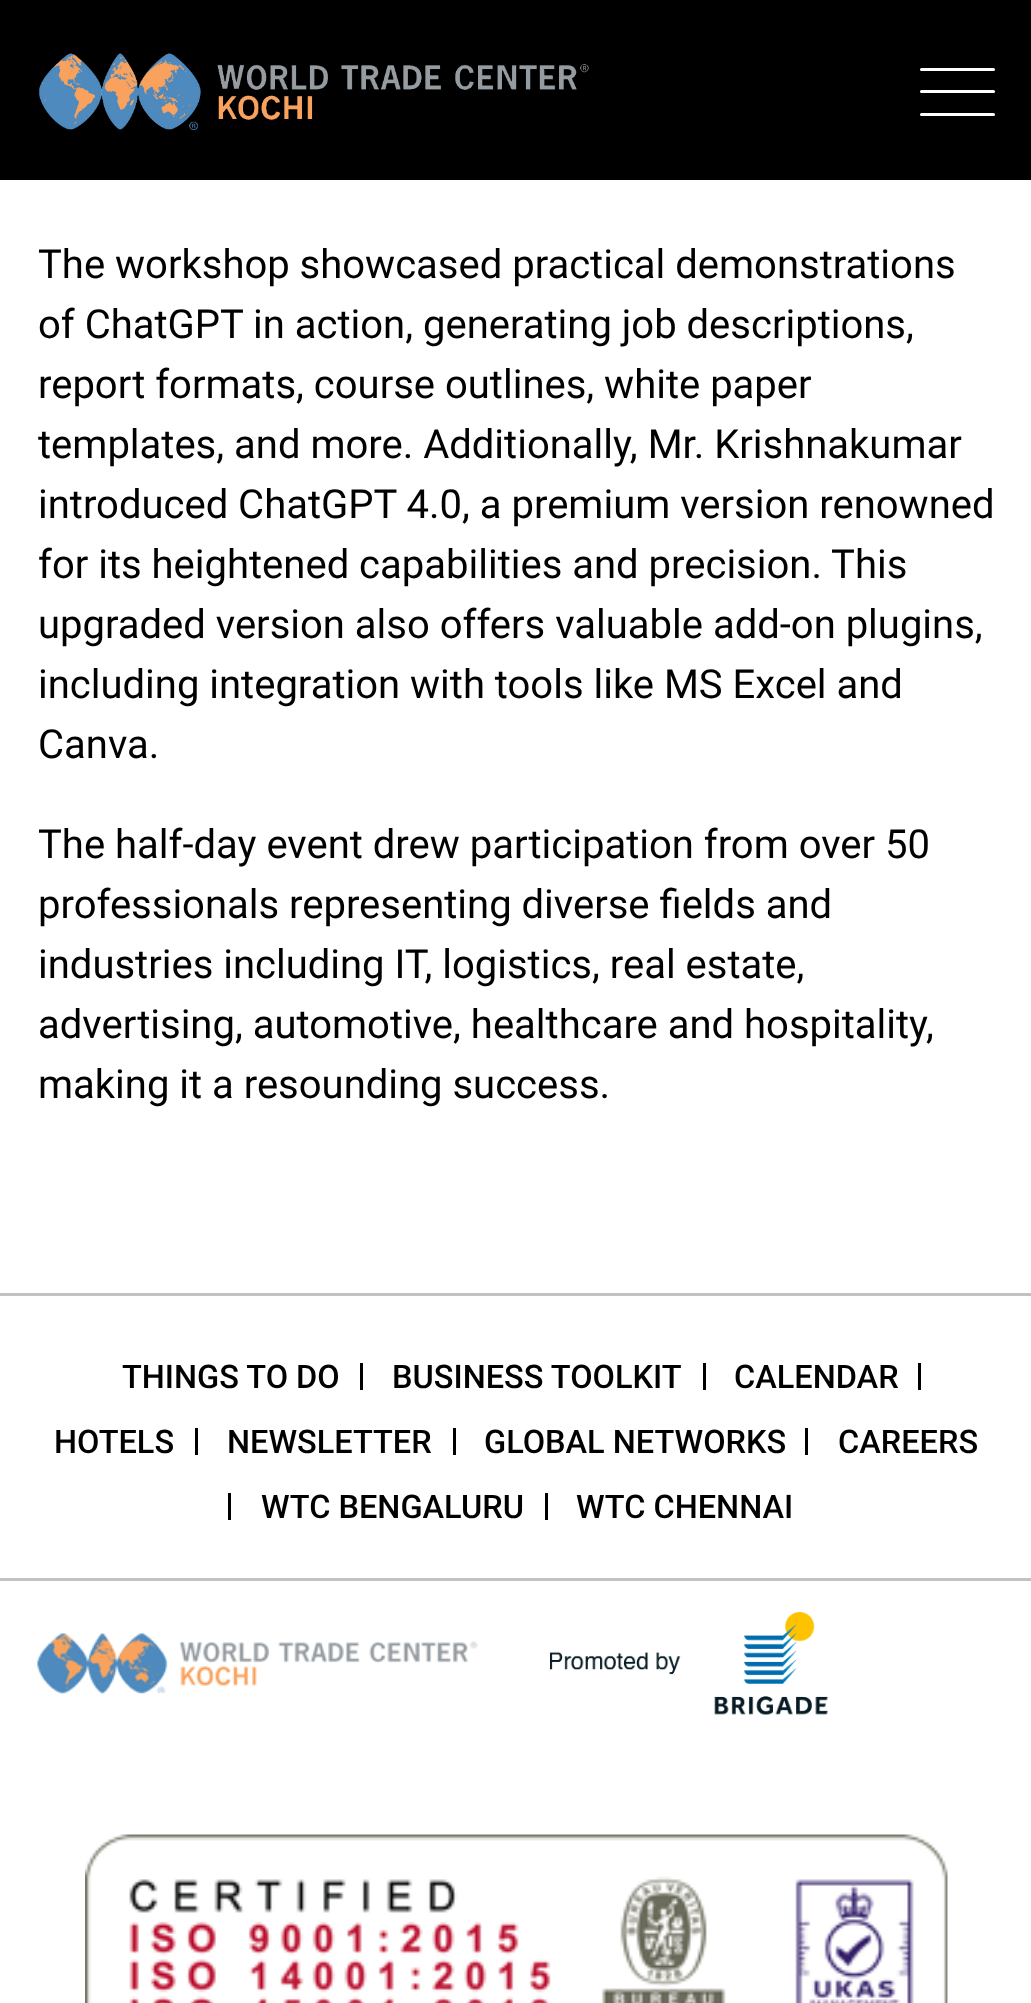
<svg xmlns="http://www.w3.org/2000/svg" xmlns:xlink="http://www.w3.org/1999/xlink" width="1031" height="2003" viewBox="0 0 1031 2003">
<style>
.cls-1{font:40px Roboto;fill:#000000}
.cls-2{font:500 32.5px Roboto;fill:#000000}
</style>
<rect width="100%" height="100%" fill="#ffffff"/>
<rect fill="#000000" x="0" y="0" width="1031" height="180"/>
<image xlink:href="image0.png" x="38" y="53" width="551" height="77"/>
<rect fill="#ffffff" x="920" y="68" width="75" height="3" rx="1.5"/>
<rect fill="#ffffff" x="920" y="90" width="75" height="3" rx="1.5"/>
<rect fill="#ffffff" x="920" y="113" width="75" height="3" rx="1.5"/>
<rect fill="#c2c2c2" x="0" y="1293" width="1031" height="3"/>
<rect fill="#000000" x="360" y="1363" width="3" height="27"/>
<rect fill="#000000" x="703" y="1363" width="3" height="27"/>
<rect fill="#000000" x="918" y="1363" width="3" height="27"/>
<rect fill="#000000" x="195" y="1428" width="3" height="27"/>
<rect fill="#000000" x="453" y="1428" width="3" height="27"/>
<rect fill="#000000" x="805" y="1428" width="3" height="27"/>
<rect fill="#000000" x="228" y="1493" width="3" height="27"/>
<rect fill="#000000" x="545" y="1493" width="3" height="27"/>
<rect fill="#c2c2c2" x="0" y="1578" width="1031" height="3"/>
<image xlink:href="image1.png" x="37" y="1633" width="441" height="61"/>
<image xlink:href="image2.png" x="550" y="1612" width="278" height="103"/>
<image xlink:href="image3.png" x="85" y="1834" width="863" height="169"/>
<text class="cls-1"><tspan x="38" y="278">The workshop showcased practical demonstrations</tspan><tspan x="38" y="338">of ChatGPT in action, generating job descriptions,</tspan><tspan x="38" y="398">report formats, course outlines, white paper</tspan><tspan x="38" y="458">templates, and more. Additionally, Mr. Krishnakumar</tspan><tspan x="38" y="518">introduced ChatGPT 4.0, a premium version renowned</tspan><tspan x="38" y="578">for its heightened capabilities and precision. This</tspan><tspan x="38" y="638">upgraded version also offers valuable add-on plugins,</tspan><tspan x="38" y="698">including integration with tools like MS Excel and</tspan><tspan x="38" y="758">Canva.</tspan></text>
<text class="cls-1"><tspan x="38" y="858">The half-day event drew participation from over 50</tspan><tspan x="38" y="918">professionals representing diverse fields and</tspan><tspan x="38" y="978">industries including IT, logistics, real estate,</tspan><tspan x="38" y="1038">advertising, automotive, healthcare and hospitality,</tspan><tspan x="38" y="1098">making it a resounding success.</tspan></text>
<text class="cls-2" x="122" y="1388">THINGS TO DO</text>
<text class="cls-2" x="392" y="1388">BUSINESS TOOLKIT</text>
<text class="cls-2" x="734" y="1388">CALENDAR</text>
<text class="cls-2" x="54" y="1453">HOTELS</text>
<text class="cls-2" x="227" y="1453">NEWSLETTER</text>
<text class="cls-2" x="484" y="1453">GLOBAL NETWORKS</text>
<text class="cls-2" x="838" y="1453">CAREERS</text>
<text class="cls-2" x="261" y="1518">WTC BENGALURU</text>
<text class="cls-2" x="576" y="1518">WTC CHENNAI</text>
</svg>
